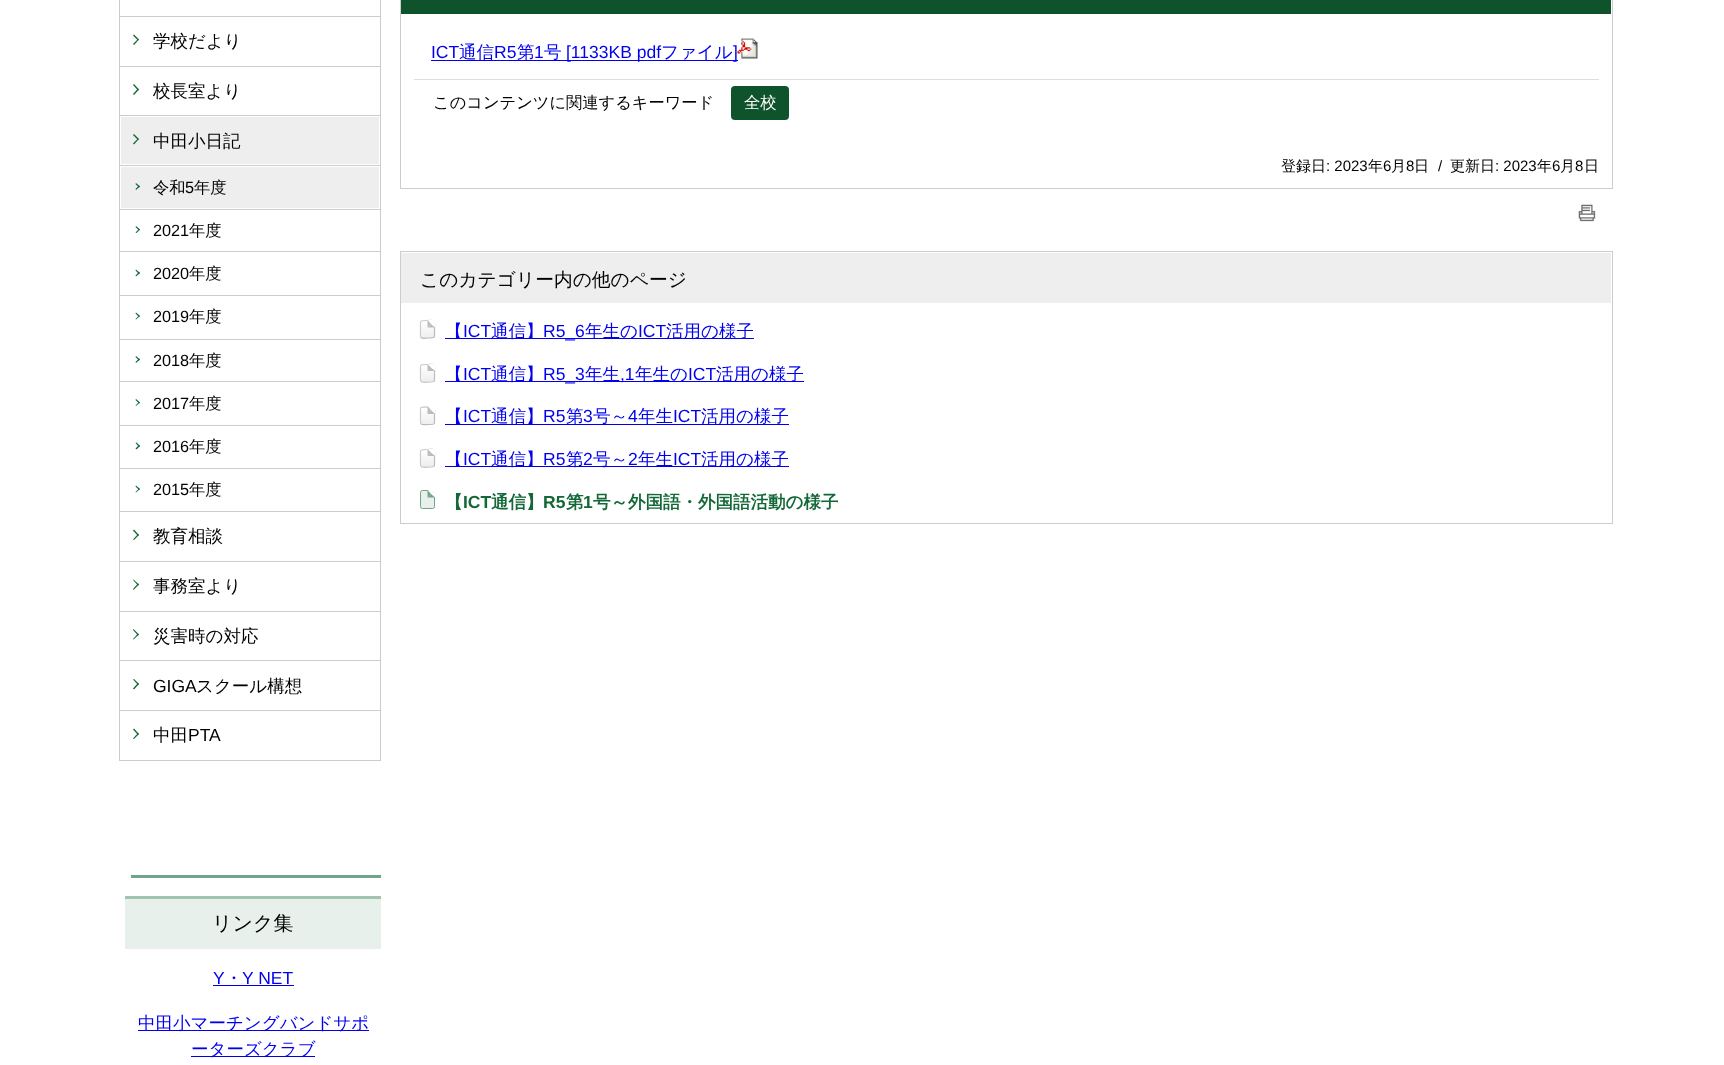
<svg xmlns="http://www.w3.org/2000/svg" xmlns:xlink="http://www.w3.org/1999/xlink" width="1724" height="1065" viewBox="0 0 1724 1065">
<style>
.cls-1{font:500 17.5px WenQuanYi Zen Hei;fill:#000000}
.cls-2{font:500 16.25px WenQuanYi Zen Hei;fill:#000000}
.cls-3{font:16.25px Liberation Sans;fill:#000000}
.cls-4{font:17.5px Liberation Sans;fill:#000000}
.cls-5{font:500 20px WenQuanYi Zen Hei;fill:#000000}
.cls-6{font:17.5px Liberation Sans;fill:#0000ee}
.cls-7{font:500 17.5px WenQuanYi Zen Hei;fill:#0000ee}
.cls-8{font:500 16.25px WenQuanYi Zen Hei;fill:#ffffff}
.cls-9{font:500 15px WenQuanYi Zen Hei;fill:#000000}
.cls-10{font:15px Liberation Sans;fill:#000000}
.cls-11{font:500 18.75px WenQuanYi Zen Hei;fill:#000000}
.cls-12{font:bold 17.5px WenQuanYi Zen Hei;fill:#136838}
.cls-13{font:bold 17.5px Liberation Sans;fill:#136838}
</style>
<defs>
<clipPath id="clip1"><rect x="420" y="320" width="15" height="19" rx="2.5"/></clipPath>
<linearGradient id="g1" gradientUnits="userSpaceOnUse" x1="428" y1="321" x2="428" y2="338"><stop offset="0" stop-color="#ffffff"/><stop offset="1" stop-color="#eeeeee"/></linearGradient>
<linearGradient id="g2" gradientUnits="userSpaceOnUse" x1="428" y1="365" x2="428" y2="381"><stop offset="0" stop-color="#ffffff"/><stop offset="1" stop-color="#eeeeee"/></linearGradient>
<clipPath id="clip2"><rect x="420" y="406" width="15" height="19" rx="2.5"/></clipPath>
<linearGradient id="g3" gradientUnits="userSpaceOnUse" x1="428" y1="391" x2="428" y2="408"><stop offset="0" stop-color="#ffffff"/><stop offset="1" stop-color="#eeeeee"/></linearGradient>
<linearGradient id="g4" gradientUnits="userSpaceOnUse" x1="428" y1="408" x2="428" y2="424"><stop offset="0" stop-color="#ffffff"/><stop offset="1" stop-color="#eeeeee"/></linearGradient>
<linearGradient id="g5" gradientUnits="userSpaceOnUse" x1="428" y1="450" x2="428" y2="466"><stop offset="0" stop-color="#ffffff"/><stop offset="1" stop-color="#eeeeee"/></linearGradient>
</defs>
<rect width="100%" height="100%" fill="#ffffff"/>
<rect fill="none" stroke="#cccccc" x="119.5" y="-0.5" width="261" height="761"/>
<rect fill="#cccccc" x="120" y="16" width="260" height="1"/>
<path fill="#136838" d="M134 34.5L139 39.5L138 40.5L133 35.5Z"/>
<path fill="#136838" d="M138 39L139 39.5L134 45L133 44Z"/>
<rect fill="#cccccc" x="120" y="66" width="260" height="1"/>
<path fill="#136838" d="M134 84L139 89.5L138 90.5L133 85Z"/>
<path fill="#136838" d="M138 88.5L139 89.5L134 95L133 94Z"/>
<rect fill="#cccccc" x="120" y="115" width="260" height="1"/>
<rect fill="#eeeeee" x="121" y="117" width="258" height="47"/>
<path fill="#136838" d="M134 134L139 139L138 140L133 135Z"/>
<path fill="#136838" d="M138 138.5L139 139L134 144.5L133 143.5Z"/>
<rect fill="#cccccc" x="120" y="165" width="260" height="1"/>
<rect fill="#eeeeee" x="121" y="167" width="258" height="41"/>
<path fill="#136838" d="M136 183L140 186.5L139 187.5L135.5 184Z"/>
<path fill="#136838" d="M139 185.5L140 186.5L136 190L135.5 189Z"/>
<rect fill="#cccccc" x="120" y="209" width="260" height="1"/>
<path fill="#136838" d="M136 226L140 229.5L139 230.5L135.5 227Z"/>
<path fill="#136838" d="M139 229L140 229.5L136.5 233L135.5 232.5Z"/>
<rect fill="#cccccc" x="120" y="251" width="260" height="1"/>
<path fill="#136838" d="M136 269.5L140 273L139 274L135.5 270.5Z"/>
<path fill="#136838" d="M139 272L140 273L136 276.5L135.5 275.5Z"/>
<rect fill="#cccccc" x="120" y="295" width="260" height="1"/>
<path fill="#136838" d="M136 312.5L140 316L139 317L135.5 313.5Z"/>
<path fill="#136838" d="M139 315.5L140 316L136 319.5L135.5 319Z"/>
<rect fill="#cccccc" x="120" y="339" width="260" height="1"/>
<path fill="#136838" d="M136 356L140 359.5L139 360.5L135.5 357Z"/>
<path fill="#136838" d="M139 358.5L140 359.5L136 363L135.5 362Z"/>
<rect fill="#cccccc" x="120" y="381" width="260" height="1"/>
<path fill="#136838" d="M136 399L140 402.5L139 403.5L135.5 400Z"/>
<path fill="#136838" d="M139 402L140 402.5L136 406L135.5 405.5Z"/>
<rect fill="#cccccc" x="120" y="425" width="260" height="1"/>
<path fill="#136838" d="M136.5 442.5L140 446L139 447L135.5 443Z"/>
<path fill="#136838" d="M139 445L140 446L136.5 449.5L135.5 448.5Z"/>
<rect fill="#cccccc" x="120" y="468" width="260" height="1"/>
<path fill="#136838" d="M136 485.5L140 489L139 490L135.5 486.5Z"/>
<path fill="#136838" d="M139 488.5L140 489L136 492.5L135.5 492Z"/>
<rect fill="#cccccc" x="120" y="511" width="260" height="1"/>
<path fill="#136838" d="M134 529.5L139 535L138 536L133 530.5Z"/>
<path fill="#136838" d="M138 534L139 535L134 540L133 539.5Z"/>
<rect fill="#cccccc" x="120" y="561" width="260" height="1"/>
<path fill="#136838" d="M133.5 579.5L139 584.5L138 585.5L133 580Z"/>
<path fill="#136838" d="M138 583.5L139 584.5L133.5 590L133 589Z"/>
<rect fill="#cccccc" x="120" y="611" width="260" height="1"/>
<path fill="#136838" d="M133.5 629L139 634.5L138 635.5L133 630Z"/>
<path fill="#136838" d="M138 633.5L139 634.5L133.5 639.5L133 639Z"/>
<rect fill="#cccccc" x="120" y="660" width="260" height="1"/>
<path fill="#136838" d="M134 679L139 684L138 685L133 679.5Z"/>
<path fill="#136838" d="M138 683L139 684L134 689.5L133 688.5Z"/>
<rect fill="#cccccc" x="120" y="710" width="260" height="1"/>
<path fill="#136838" d="M134 728.5L139 734L138 735L133 729.5Z"/>
<path fill="#136838" d="M138 733L139 734L134 739L133 738.5Z"/>
<rect fill="#71a488" x="131" y="875" width="250" height="3"/>
<rect fill="#e7f0eb" x="125" y="899" width="256" height="50"/>
<rect fill="#a1c3af" x="125" y="896" width="256" height="3"/>
<rect fill="#0000ee" x="213" y="985" width="81" height="1"/>
<rect fill="#0000ee" x="138" y="1030" width="231" height="1"/>
<rect fill="#0000ee" x="191" y="1056" width="124" height="1"/>
<rect fill="none" stroke="#cccccc" x="400.5" y="-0.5" width="1212" height="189"/>
<rect fill="#0f532d" x="401" y="0" width="1210" height="14"/>
<rect fill="#0000ee" x="431" y="60" width="307" height="1"/>
<image xlink:href="image0.png" x="737" y="38" width="21" height="21"/>
<rect fill="#dddddd" x="414" y="79" width="1185" height="1"/>
<rect fill="#0f532d" x="731" y="86" width="58" height="34" rx="4"/>
<image xlink:href="image1.png" x="1578" y="204" width="18" height="18"/>
<rect fill="none" stroke="#cccccc" x="400.5" y="251.5" width="1212" height="272"/>
<rect fill="#eeeeee" x="401" y="253" width="1210" height="50"/>
<g clip-path="url(#clip1)">
<rect fill="url(#g1)" x="420" y="321" width="15" height="17"/>
</g>
<path fill="none" stroke="#bbbbbb" stroke-width="1.2" d="M434 321C435 322.5 434.5 328 434.5 329.5C434.5 338.5 436 338 427.5 338C426 338 422.5 339 421 337.5"/>
<path fill="none" stroke="#cccccc" stroke-width="1.2" d="M421 337.5C420 336.5 420.5 331 420.5 329.5C420.5 320 419 320.5 427.5 320.5C429 320.5 432.5 320 434 321"/>
<path fill="#ffffff" d="M427.5 320H435L431 324Z"/>
<path fill="#ffffff" d="M435 320V327.5L431 324Z"/>
<path fill="#bbbbbb" d="M435 327.5H427.5L431 324Z"/>
<path fill="#bbbbbb" d="M427.5 327.5V320L431 324Z"/>
<rect fill="#0000ee" x="445" y="338" width="309" height="1"/>
<rect fill="url(#g2)" x="420" y="367" width="15" height="14"/>
<path fill="none" stroke="#bbbbbb" stroke-width="1.2" d="M434 365C435 366 434.5 371.5 434.5 373C434.5 382.5 436 382 427.5 382C426 382 422.5 382.5 421 381.5"/>
<path fill="none" stroke="#cccccc" stroke-width="1.2" d="M421 381.5C420 380 420.5 374.5 420.5 373C420.5 364 419 364.5 427.5 364.5C429 364.5 432.5 363.5 434 365"/>
<path fill="#ffffff" d="M427.5 364H435L431 367.5Z"/>
<path fill="#ffffff" d="M435 364V371L431 367.5Z"/>
<path fill="#bbbbbb" d="M435 371H427.5L431 367.5Z"/>
<path fill="#bbbbbb" d="M427.5 371V364L431 367.5Z"/>
<rect fill="#0000ee" x="445" y="381" width="359" height="1"/>
<g clip-path="url(#clip2)">
<rect fill="url(#g3)" x="420" y="406" width="15" height="2"/>
</g>
<rect fill="url(#g4)" x="420" y="410" width="15" height="14"/>
<path fill="none" stroke="#bbbbbb" stroke-width="1.2" d="M434 407.5C435 408.5 434.5 414 434.5 415.5C434.5 425 436 424.5 427.5 424.5C426 424.5 422.5 425 421 424"/>
<path fill="none" stroke="#cccccc" stroke-width="1.2" d="M421 424C420 422.5 420.5 417 420.5 415.5C420.5 406.5 419 407 427.5 407C429 407 432.5 406 434 407.5"/>
<path fill="#ffffff" d="M427.5 406H435L431 410Z"/>
<path fill="#ffffff" d="M435 406V414L431 410Z"/>
<path fill="#bbbbbb" d="M435 414H427.5L431 410Z"/>
<path fill="#bbbbbb" d="M427.5 414V406L431 410Z"/>
<rect fill="#0000ee" x="445" y="424" width="344" height="1"/>
<rect fill="url(#g5)" x="420" y="452" width="15" height="14"/>
<path fill="none" stroke="#bbbbbb" stroke-width="1.2" d="M434 450C435 451 434.5 456.5 434.5 458C434.5 467.5 436 467 427.5 467C426 467 422.5 467.5 421 466.5"/>
<path fill="none" stroke="#cccccc" stroke-width="1.2" d="M421 466.5C420 465 420.5 459.5 420.5 458C420.5 449 419 449.5 427.5 449.5C429 449.5 432.5 448.5 434 450"/>
<path fill="#ffffff" d="M427.5 449H435L431 452.5Z"/>
<path fill="#ffffff" d="M435 449V456L431 452.5Z"/>
<path fill="#bbbbbb" d="M435 456H427.5L431 452.5Z"/>
<path fill="#bbbbbb" d="M427.5 456V449L431 452.5Z"/>
<rect fill="#0000ee" x="445" y="466" width="344" height="1"/>
<rect fill="#e7f0eb" stroke="#71a488" x="420.5" y="490.5" width="14" height="18" rx="2"/>
<path fill="#ffffff" d="M427.5 490H435L431 494Z"/>
<path fill="#ffffff" d="M435 490V497.5L431 494Z"/>
<path fill="#71a488" d="M435 497.5H427.5L431 494Z"/>
<path fill="#71a488" d="M427.5 497.5V490L431 494Z"/>
<text class="cls-1" x="153" y="47">学校だより</text>
<text class="cls-1" x="153" y="97">校長室より</text>
<text class="cls-1" x="153" y="147">中田小日記</text>
<text class="cls-2" x="153" y="193">令和</text>
<text class="cls-3" x="185" y="193">5</text>
<text class="cls-2" x="194" y="193">年度</text>
<text class="cls-3" x="153" y="236">2021</text>
<text class="cls-2" x="189" y="236">年度</text>
<text class="cls-3" x="153" y="279">2020</text>
<text class="cls-2" x="189" y="279">年度</text>
<text class="cls-3" x="153" y="322">2019</text>
<text class="cls-2" x="189" y="322">年度</text>
<text class="cls-3" x="153" y="366">2018</text>
<text class="cls-2" x="189" y="366">年度</text>
<text class="cls-3" x="153" y="409">2017</text>
<text class="cls-2" x="189" y="409">年度</text>
<text class="cls-3" x="153" y="452">2016</text>
<text class="cls-2" x="189" y="452">年度</text>
<text class="cls-3" x="153" y="495">2015</text>
<text class="cls-2" x="189" y="495">年度</text>
<text class="cls-1" x="153" y="542">教育相談</text>
<text class="cls-1" x="153" y="592">事務室より</text>
<text class="cls-1" x="153" y="642">災害時の対応</text>
<text class="cls-4" x="153" y="692">GIGA</text>
<text class="cls-1" x="196" y="692">スクール構想</text>
<text class="cls-1" x="153" y="741">中田</text>
<text class="cls-4" x="188" y="741">PTA</text>
<text class="cls-5" x="212" y="930">リンク集</text>
<text class="cls-6" x="213" y="984">Y</text>
<text class="cls-7" x="225" y="984">・</text>
<text class="cls-6" x="242" y="984">Y NET</text>
<text class="cls-7" x="138" y="1029">中田小マーチングバンドサポ</text>
<text class="cls-7" x="191" y="1055">ーターズクラブ</text>
<text class="cls-6" x="431" y="58">ICT</text>
<text class="cls-7" x="459" y="58">通信</text>
<text class="cls-6" x="494" y="58">R5</text>
<text class="cls-7" x="517" y="58">第</text>
<text class="cls-6" x="534" y="58">1</text>
<text class="cls-7" x="544" y="58">号</text>
<text class="cls-6" x="566" y="58">[1133KB pdf</text>
<text class="cls-7" x="661" y="58">ファイル</text>
<text class="cls-6" x="733" y="58">]</text>
<text class="cls-2" x="433" y="108">このコンテンツに関連するキーワード</text>
<text class="cls-8" x="744" y="108">全校</text>
<text class="cls-9" x="1281" y="171">登録日</text>
<text class="cls-10" x="1326" y="171">: 2023</text>
<text class="cls-9" x="1368" y="171">年</text>
<text class="cls-10" x="1383" y="171">6</text>
<text class="cls-9" x="1391" y="171">月</text>
<text class="cls-10" x="1406" y="171">8</text>
<text class="cls-9" x="1414" y="171">日</text>
<text class="cls-10" x="1438" y="171">/</text>
<text class="cls-9" x="1450" y="171">更新日</text>
<text class="cls-10" x="1495" y="171">: 2023</text>
<text class="cls-9" x="1537" y="171">年</text>
<text class="cls-10" x="1552" y="171">6</text>
<text class="cls-9" x="1560" y="171">月</text>
<text class="cls-10" x="1575" y="171">8</text>
<text class="cls-9" x="1584" y="171">日</text>
<text class="cls-11" x="420" y="286">このカテゴリー内の他のページ</text>
<text class="cls-7" x="445" y="337">【</text>
<text class="cls-6" x="463" y="337">ICT</text>
<text class="cls-7" x="491" y="337">通信】</text>
<text class="cls-6" x="543" y="337">R5_6</text>
<text class="cls-7" x="585" y="337">年生の</text>
<text class="cls-6" x="638" y="337">ICT</text>
<text class="cls-7" x="666" y="337">活用の様子</text>
<text class="cls-7" x="445" y="380">【</text>
<text class="cls-6" x="463" y="380">ICT</text>
<text class="cls-7" x="491" y="380">通信】</text>
<text class="cls-6" x="543" y="380">R5_3</text>
<text class="cls-7" x="585" y="380">年生</text>
<text class="cls-6" x="620" y="380">,1</text>
<text class="cls-7" x="635" y="380">年生の</text>
<text class="cls-6" x="688" y="380">ICT</text>
<text class="cls-7" x="716" y="380">活用の様子</text>
<text class="cls-7" x="445" y="422">【</text>
<text class="cls-6" x="463" y="422">ICT</text>
<text class="cls-7" x="491" y="422">通信】</text>
<text class="cls-6" x="543" y="422">R5</text>
<text class="cls-7" x="566" y="422">第</text>
<text class="cls-6" x="583" y="422">3</text>
<text class="cls-7" x="593" y="422">号～</text>
<text class="cls-6" x="628" y="422">4</text>
<text class="cls-7" x="638" y="422">年生</text>
<text class="cls-6" x="673" y="422">ICT</text>
<text class="cls-7" x="701" y="422">活用の様子</text>
<text class="cls-7" x="445" y="465">【</text>
<text class="cls-6" x="463" y="465">ICT</text>
<text class="cls-7" x="491" y="465">通信】</text>
<text class="cls-6" x="543" y="465">R5</text>
<text class="cls-7" x="566" y="465">第</text>
<text class="cls-6" x="583" y="465">2</text>
<text class="cls-7" x="593" y="465">号～</text>
<text class="cls-6" x="628" y="465">2</text>
<text class="cls-7" x="638" y="465">年生</text>
<text class="cls-6" x="673" y="465">ICT</text>
<text class="cls-7" x="701" y="465">活用の様子</text>
<text class="cls-12" x="445" y="508">【</text>
<text class="cls-13" x="463" y="508">ICT</text>
<text class="cls-12" x="491" y="508">通信】</text>
<text class="cls-13" x="543" y="508">R5</text>
<text class="cls-12" x="566" y="508">第</text>
<text class="cls-13" x="583" y="508">1</text>
<text class="cls-12" x="593" y="508">号～外国語・外国語活動の様子</text>
</svg>
